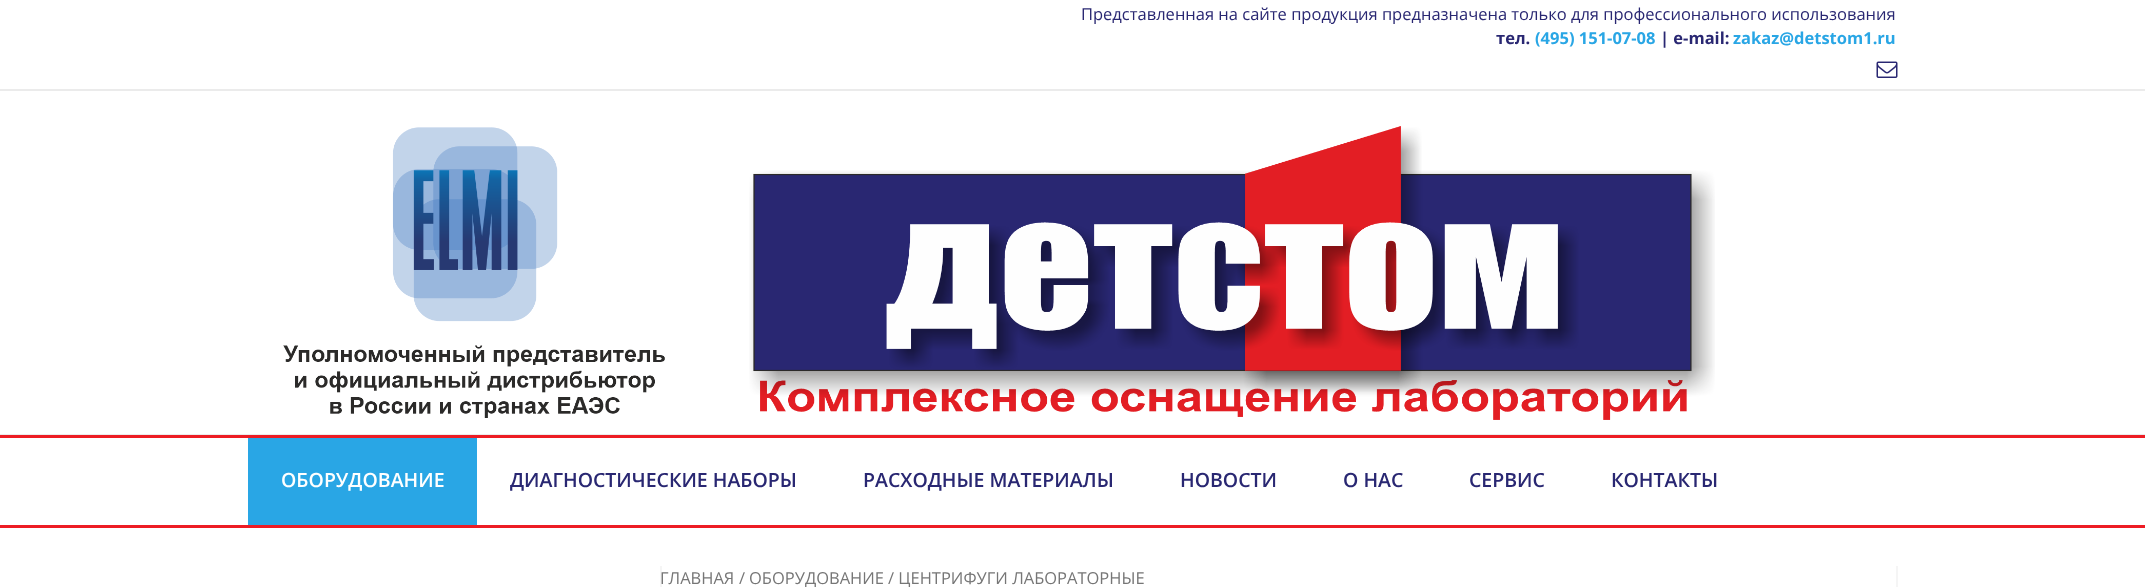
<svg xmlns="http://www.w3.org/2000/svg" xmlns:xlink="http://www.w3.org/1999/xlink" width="2145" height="587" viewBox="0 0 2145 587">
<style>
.cls-1{font:16.5px Open Sans;fill:#292772}
.cls-2{font:bold 16.5px Open Sans;fill:#292772}
.cls-3{font:bold 16.5px Open Sans;fill:#29a6e5}
.cls-4{font:600 19.5px Open Sans;fill:#ffffff}
.cls-5{font:600 19.5px Open Sans;fill:#292772}
.cls-6{font:16.5px Open Sans;fill:#767676}
</style>
<rect width="100%" height="100%" fill="#ffffff"/>
<rect fill="#ed1c24" x="0" y="525" width="2145" height="3"/>
<rect fill="#ebebeb" x="0" y="89" width="2145" height="2"/>
<image xlink:href="image0.png" x="1876" y="61" width="22" height="17"/>
<image xlink:href="image1.png" x="283" y="126" width="1432" height="294"/>
<rect fill="#ebebeb" x="0" y="434" width="2145" height="1"/>
<rect fill="#ed1c24" x="0" y="435" width="2145" height="3"/>
<rect fill="#29a6e5" x="248" y="438" width="229" height="87"/>
<rect fill="#f5f5f5" x="660" y="566" width="2" height="21"/>
<rect fill="#f5f5f5" x="1896" y="566" width="2" height="21"/>
<text class="cls-1" x="1081" y="20">Представленная на сайте продукция предназначена только для профессионального использования</text>
<text class="cls-2" x="1496" y="44">тел.</text>
<text class="cls-3" x="1535" y="44">(495) 151-07-08</text>
<text class="cls-2" x="1660" y="44">| e-mail:</text>
<text class="cls-3" x="1733" y="44">zakaz@detstom1.ru</text>
<text class="cls-4" x="281" y="487">ОБОРУДОВАНИЕ</text>
<text class="cls-5" x="510" y="487">ДИАГНОСТИЧЕСКИЕ НАБОРЫ</text>
<text class="cls-5" x="863" y="487">РАСХОДНЫЕ МАТЕРИАЛЫ</text>
<text class="cls-5" x="1180" y="487">НОВОСТИ</text>
<text class="cls-5" x="1343" y="487">О НАС</text>
<text class="cls-5" x="1469" y="487">СЕРВИС</text>
<text class="cls-5" x="1611" y="487">КОНТАКТЫ</text>
<text class="cls-6" x="660" y="584">ГЛАВНАЯ</text>
<text class="cls-6" x="739" y="584">/</text>
<text class="cls-6" x="749" y="584">ОБОРУДОВАНИЕ</text>
<text class="cls-6" x="888" y="584">/ ЦЕНТРИФУГИ ЛАБОРАТОРНЫЕ</text>
</svg>
